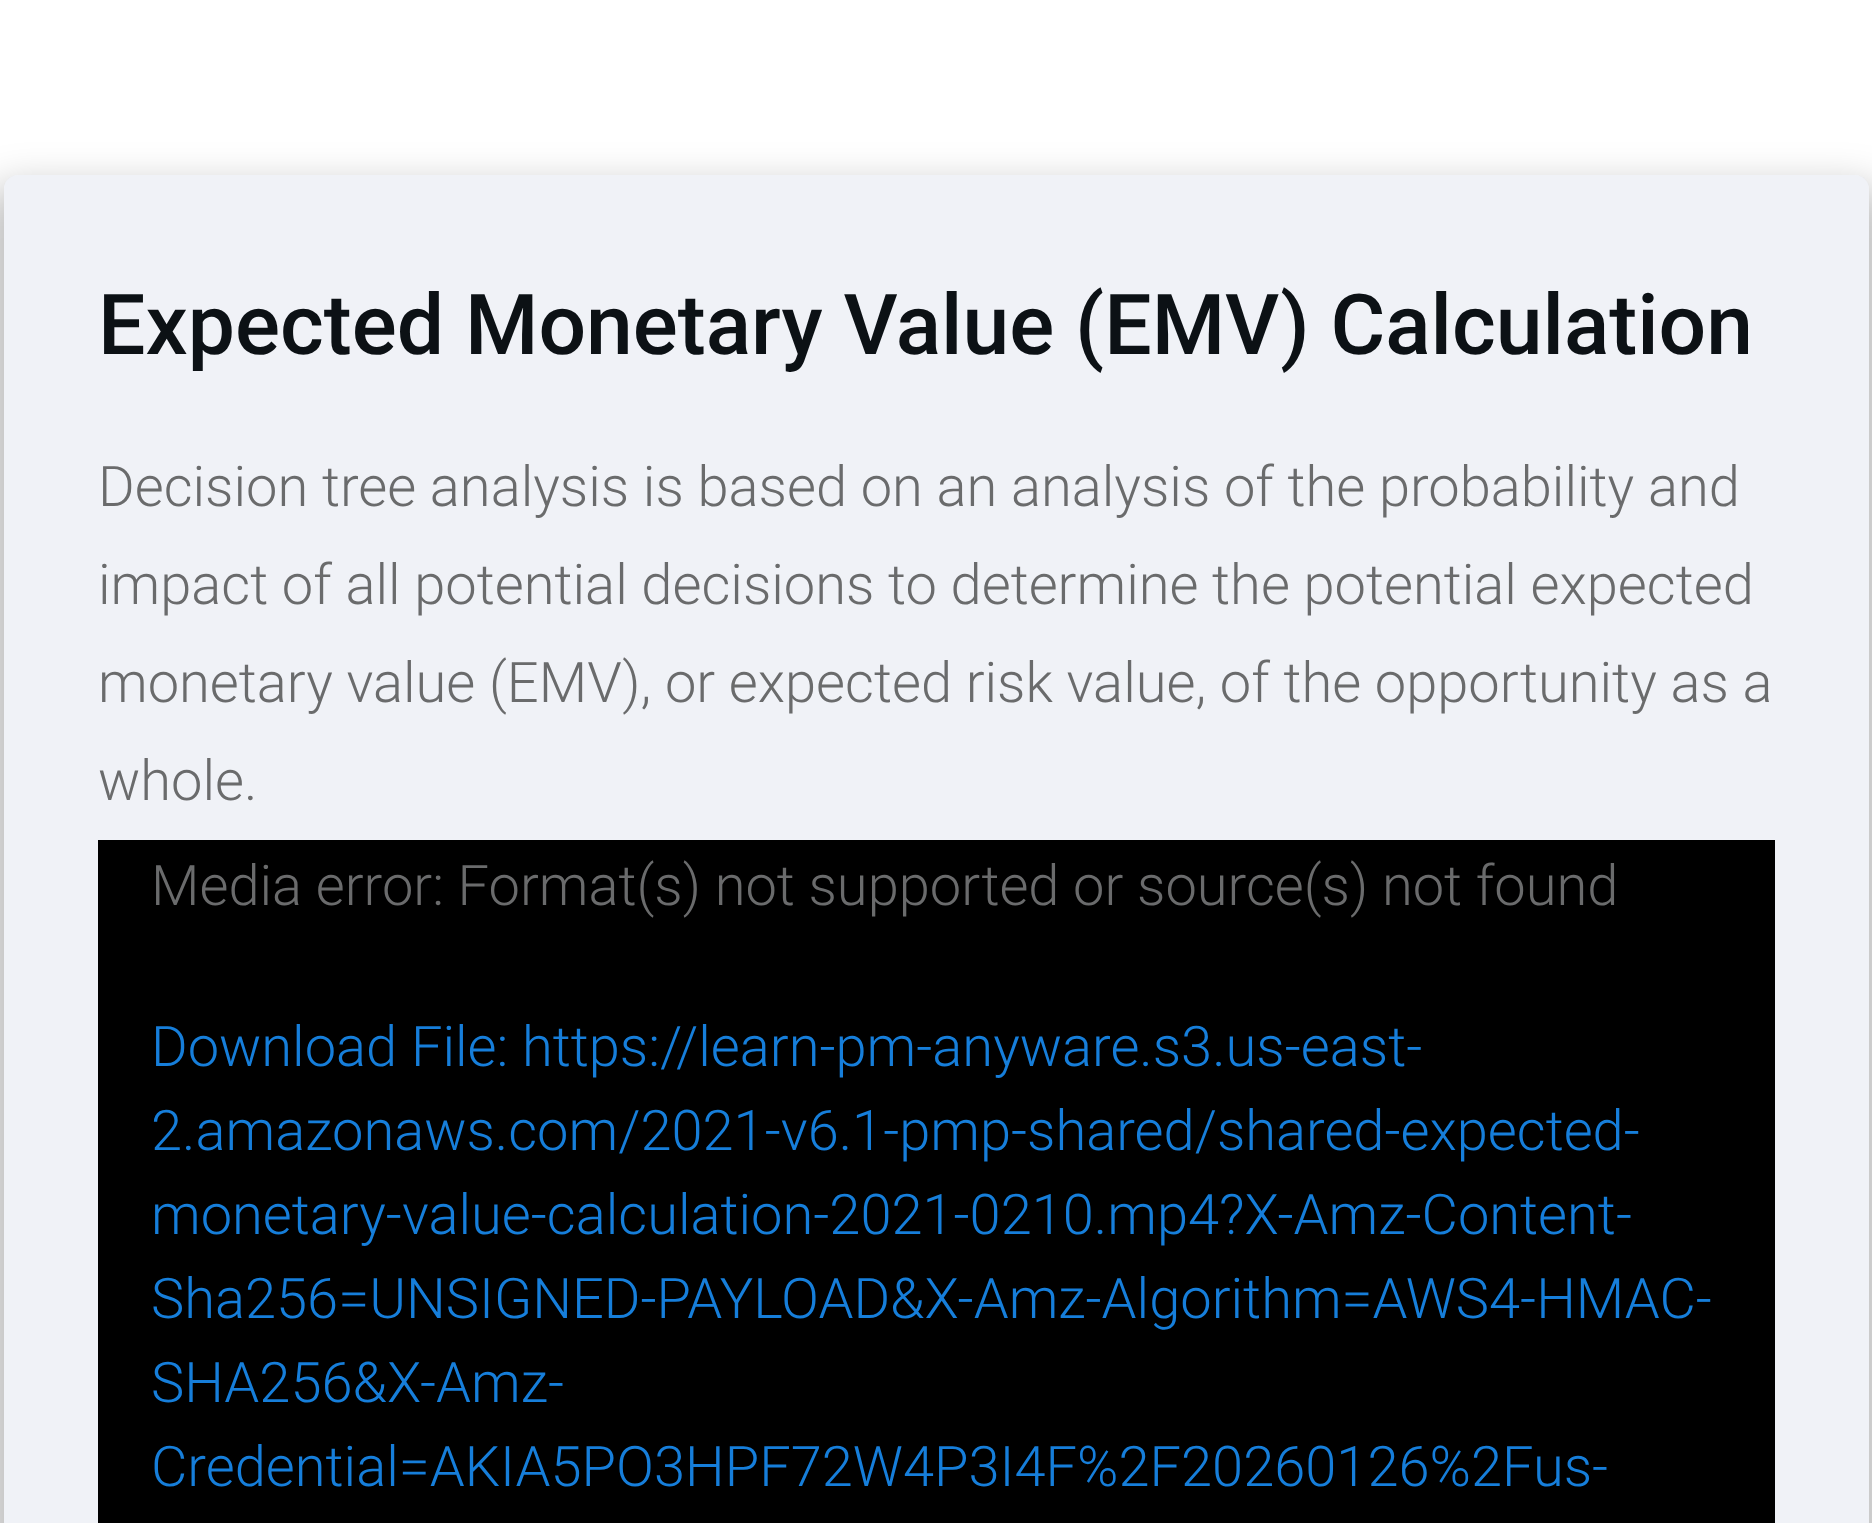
<svg xmlns="http://www.w3.org/2000/svg" xmlns:xlink="http://www.w3.org/1999/xlink" width="1872" height="1523" viewBox="0 0 1872 1523">
<style>
.cls-1{font:500 84px Roboto;fill:#0c1115}
.cls-2{font:300 56px Roboto;fill:#6a6b6c}
.cls-3{font:300 56px Roboto;fill:#167eda}
</style>
<defs>
<clipPath id="clip1"><path d="M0 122H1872V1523H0ZM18 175H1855C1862.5 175 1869 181.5 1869 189V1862C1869 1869.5 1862.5 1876 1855 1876H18C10.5 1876 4 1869.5 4 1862V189C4 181.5 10.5 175 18 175Z" clip-rule="evenodd"/></clipPath>
</defs>
<rect width="100%" height="100%" fill="#ffffff"/>
<g clip-path="url(#clip1)">
<rect fill="#000000" fill-opacity="0.25" filter="blur(21px)" x="-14" y="186" width="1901" height="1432" rx="32"/>
</g>
<rect fill="#e1e6ef" fill-opacity="0.5" x="4" y="175" width="1865" height="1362" rx="14"/>
<rect fill="#000000" x="98" y="840" width="1677" height="683"/>
<text class="cls-1" x="98" y="354">Expected Monetary Value (EMV) Calculation</text>
<text class="cls-2"><tspan x="98" y="506">Decision tree analysis is based on an analysis of the probability and</tspan><tspan x="98" y="604">impact of all potential decisions to determine the potential expected</tspan><tspan x="98" y="702">monetary value (EMV), or expected risk value, of the opportunity as a</tspan><tspan x="98" y="800">whole.</tspan></text>
<text class="cls-2" x="151" y="905">Media error: Format(s) not supported or source(s) not found</text>
<text class="cls-3"><tspan x="151" y="1066">Download File: https://learn-pm-anyware.s3.us-east-</tspan><tspan x="151" y="1150">2.amazonaws.com/2021-v6.1-pmp-shared/shared-expected-</tspan><tspan x="151" y="1234">monetary-value-calculation-2021-0210.mp4?X-Amz-Content-</tspan><tspan x="151" y="1318">Sha256=UNSIGNED-PAYLOAD&amp;X-Amz-Algorithm=AWS4-HMAC-</tspan><tspan x="151" y="1402">SHA256&amp;X-Amz-</tspan><tspan x="151" y="1486">Credential=AKIA5PO3HPF72W4P3I4F%2F20260126%2Fus-</tspan></text>
</svg>
